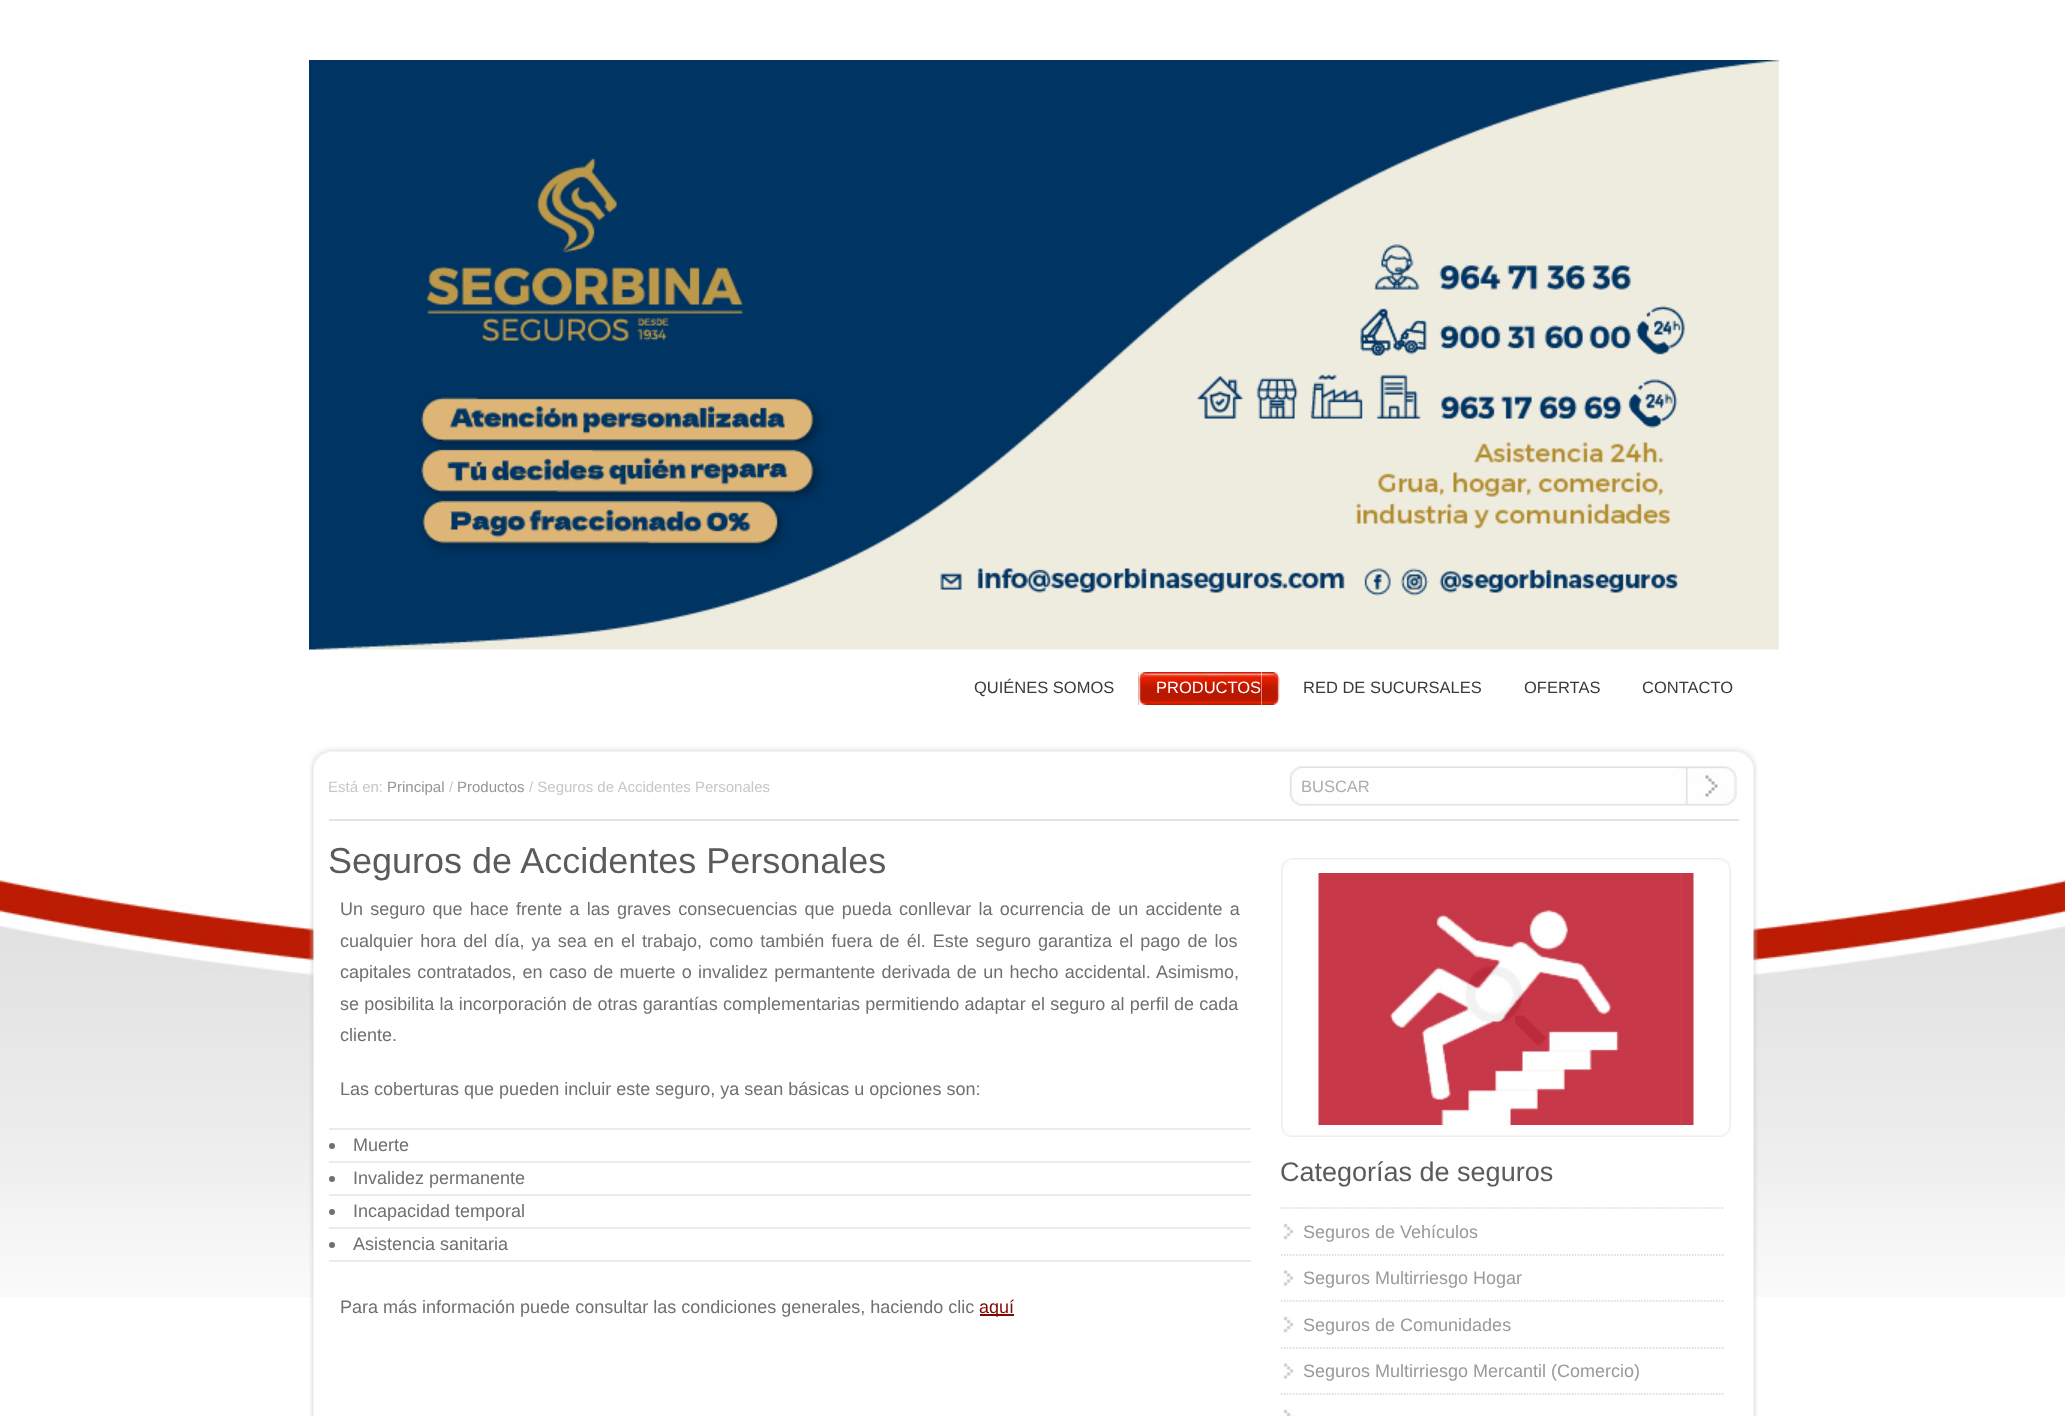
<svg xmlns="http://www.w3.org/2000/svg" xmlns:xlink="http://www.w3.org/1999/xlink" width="2065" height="1416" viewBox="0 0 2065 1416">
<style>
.cls-1{font:16.5px Liberation Sans;fill:#3e3838}
.cls-2{font:16.5px Liberation Sans;fill:#ffffff}
.cls-3{font:15px Liberation Sans;fill:#c7c7c7}
.cls-4{font:15px Liberation Sans;fill:#969696}
.cls-5{font:16.5px Liberation Sans;fill:#adadad}
.cls-6{font:36px Liberation Sans;fill:#5c5a5b}
.cls-7{font:18px Liberation Sans;fill:#707070}
.cls-8{font:18px Liberation Sans;fill:#820901}
.cls-9{font:27px Liberation Sans;fill:#5c5a5b}
.cls-10{font:18px Liberation Sans;fill:#979c97}
</style>
<rect width="100%" height="100%" fill="#ffffff"/>
<image xlink:href="image0.png" x="309" y="60" width="1470" height="590"/>
<image xlink:href="image1.png" x="1138" y="672" width="142" height="33"/>
<rect fill="#ffffff" x="1139" y="672" width="123" height="33"/>
<image xlink:href="image2.png" x="1138" y="672" width="124" height="33"/>
<image xlink:href="image3.png" x="0" y="782" width="2065" height="515"/>
<image xlink:href="image5.png" x="309" y="766" width="1449" height="650"/>
<image xlink:href="image4.png" x="309" y="744" width="1449" height="23"/>
<rect fill="#e4e4e4" x="329" y="819" width="1410" height="2"/>
<image xlink:href="image6.png" x="1289" y="766" width="448" height="40"/>
<rect fill="#ffffff" x="1302" y="768" width="375" height="1"/>
<rect fill="#ebebeb" x="329" y="1128" width="922" height="2"/>
<rect fill="#ebebeb" x="329" y="1161" width="922" height="2"/>
<circle fill="#707070" cx="332" cy="1146" r="3"/>
<rect fill="#ebebeb" x="329" y="1194" width="922" height="2"/>
<circle fill="#707070" cx="332" cy="1179" r="3"/>
<rect fill="#ebebeb" x="329" y="1227" width="922" height="2"/>
<circle fill="#707070" cx="332" cy="1212" r="3"/>
<rect fill="#ebebeb" x="329" y="1260" width="922" height="2"/>
<circle fill="#707070" cx="332" cy="1245" r="3"/>
<rect fill="#820901" x="980" y="1314" width="34" height="2"/>
<image xlink:href="image7.png" x="1281" y="868" width="450" height="257"/>
<image xlink:href="image8.png" x="1281" y="858" width="450" height="10"/>
<image xlink:href="image9.png" x="1465" y="965" width="82" height="83"/>
<image xlink:href="image10.png" x="1318" y="873" width="376" height="252"/>
<image xlink:href="image11.png" x="1281" y="1125" width="450" height="12"/>
<path fill="none" stroke="#d5d5d5" stroke-width="1.5" stroke-dasharray="1.5 1.5" d="M1281 1208H1723.5"/>
<path fill="none" stroke="#d5d5d5" stroke-width="1.5" stroke-dasharray="1.5 1.5" d="M1281 1255H1723.5"/>
<image xlink:href="image12.png" x="1283" y="1223" width="10" height="17"/>
<path fill="none" stroke="#d5d5d5" stroke-width="1.5" stroke-dasharray="1.5 1.5" d="M1281 1301H1723.5"/>
<image xlink:href="image13.png" x="1283" y="1270" width="10" height="16"/>
<path fill="none" stroke="#d5d5d5" stroke-width="1.5" stroke-dasharray="1.5 1.5" d="M1281 1348H1723.5"/>
<image xlink:href="image12.png" x="1283" y="1316" width="10" height="17"/>
<path fill="none" stroke="#d5d5d5" stroke-width="1.5" stroke-dasharray="1.5 1.5" d="M1281 1394H1723.5"/>
<image xlink:href="image13.png" x="1283" y="1363" width="10" height="16"/>
<image xlink:href="image14.png" x="1283" y="1409" width="10" height="7"/>
<text class="cls-1" x="974" y="693">QUIÉNES SOMOS</text>
<text class="cls-2" x="1156" y="693">PRODUCTOS</text>
<text class="cls-1" x="1303" y="693">RED DE SUCURSALES</text>
<text class="cls-1" x="1524" y="693">OFERTAS</text>
<text class="cls-1" x="1642" y="693">CONTACTO</text>
<text class="cls-3" x="328" y="792">Está en:</text>
<text class="cls-4" x="387" y="792">Principal</text>
<text class="cls-3" x="449" y="792">/</text>
<text class="cls-4" x="457" y="792">Productos</text>
<text class="cls-3" x="529" y="792">/ Seguros de Accidentes Personales</text>
<text class="cls-5" x="1301" y="792">BUSCAR</text>
<text class="cls-6" x="328" y="873">Seguros de Accidentes Personales</text>
<text class="cls-7"><tspan x="340" y="915" word-spacing="2.25">Un seguro que hace frente a las graves consecuencias que pueda conllevar la ocurrencia de un accidente a</tspan><tspan x="340" y="947" word-spacing="2.1">cualquier hora del día, ya sea en el trabajo, como también fuera de él. Este seguro garantiza el pago de los</tspan><tspan x="340" y="978" word-spacing="1.25">capitales contratados, en caso de muerte o invalidez permantente derivada de un hecho accidental. Asimismo,</tspan><tspan x="340" y="1010" word-spacing="0.25">se posibilita la incorporación de otras garantías complementarias permitiendo adaptar el seguro al perfil de cada</tspan><tspan x="340" y="1041">cliente.</tspan></text>
<text class="cls-7" x="340" y="1095">Las coberturas que pueden incluir este seguro, ya sean básicas u opciones son:</text>
<text class="cls-7"><tspan x="353" y="1151">Muerte</tspan><tspan x="353" y="1184">Invalidez permanente</tspan><tspan x="353" y="1217">Incapacidad temporal</tspan><tspan x="353" y="1250">Asistencia sanitaria</tspan></text>
<text class="cls-7" x="340" y="1313">Para más información puede consultar las condiciones generales, haciendo clic</text>
<text class="cls-8" x="979" y="1313">aquí</text>
<text class="cls-9" x="1280" y="1181">Categorías de seguros</text>
<text class="cls-10" x="1303" y="1238">Seguros de Vehículos</text>
<text class="cls-10" x="1303" y="1284">Seguros Multirriesgo Hogar</text>
<text class="cls-10" x="1303" y="1331">Seguros de Comunidades</text>
<text class="cls-10" x="1303" y="1377">Seguros Multirriesgo Mercantil (Comercio)</text>
</svg>
